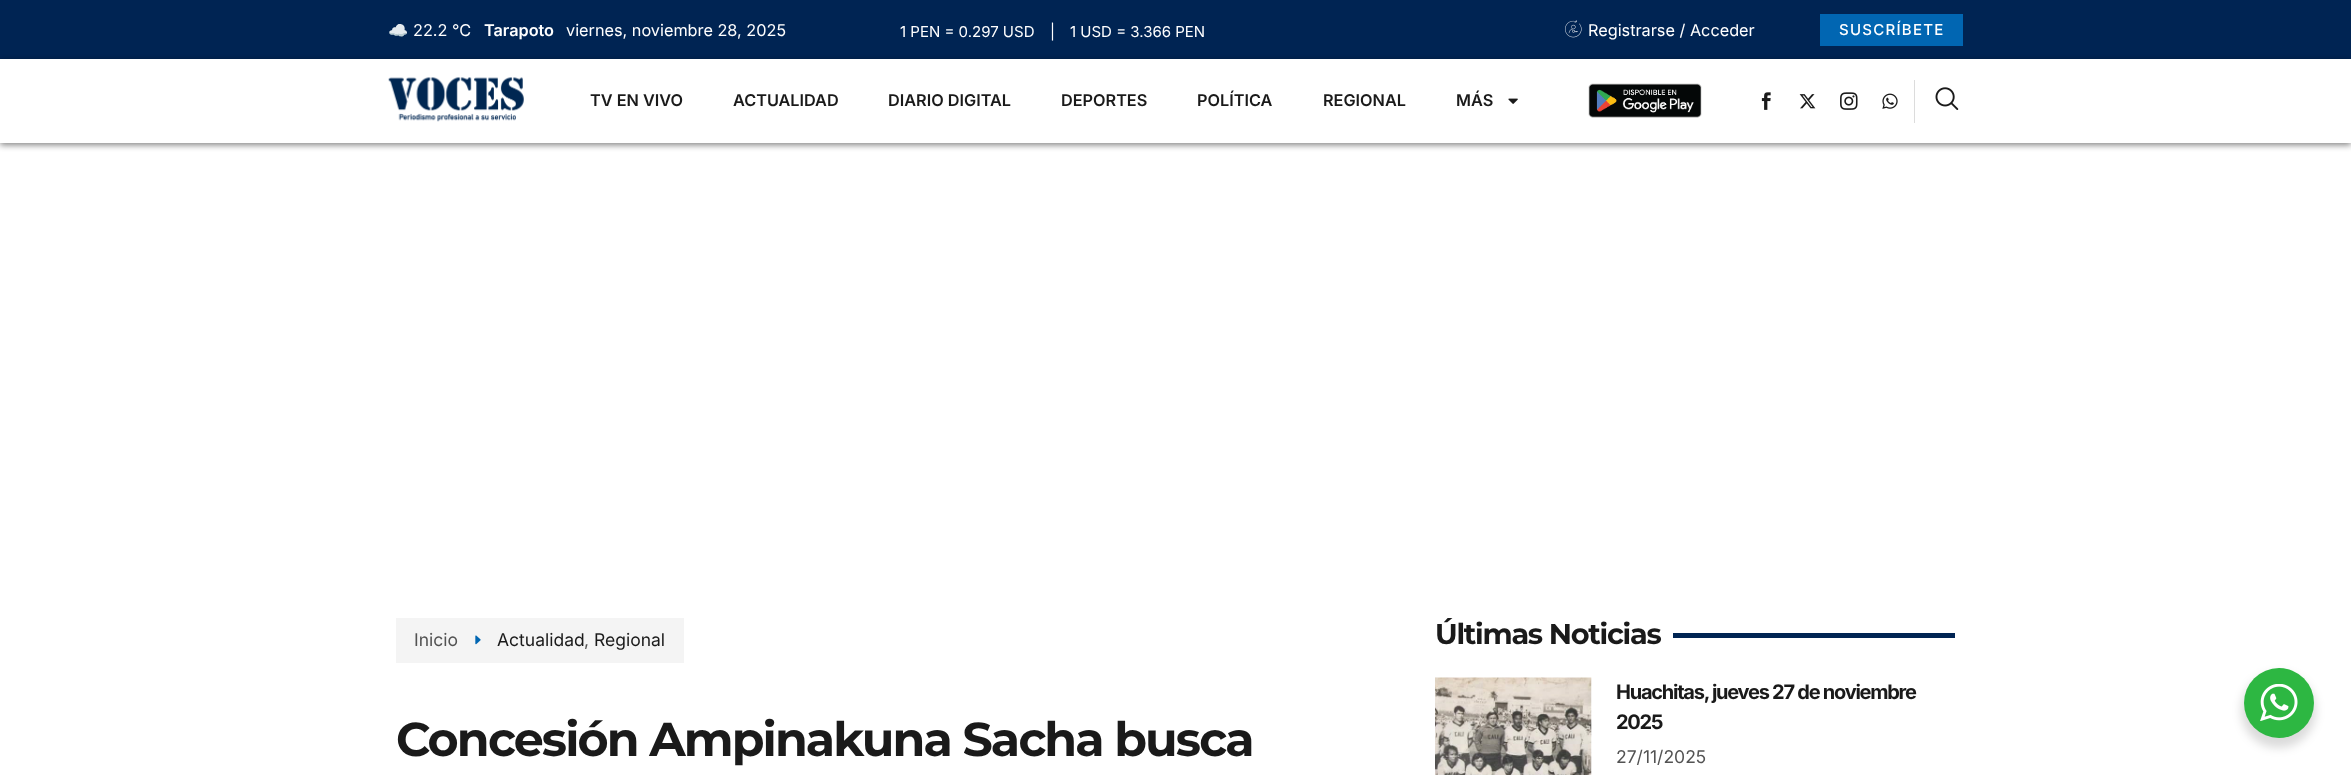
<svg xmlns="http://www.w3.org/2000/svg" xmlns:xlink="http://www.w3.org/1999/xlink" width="2351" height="775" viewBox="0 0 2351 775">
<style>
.cls-1{font:16.25px Noto Color Emoji;fill:#ffffff}
.cls-2{font:16.25px Inter;fill:#ffffff}
.cls-3{font:600 16.25px Inter;fill:#ffffff}
.cls-4{font:15px Inter;fill:#ffffff}
.cls-5{font:500 15px Inter;letter-spacing:1.25px;fill:#ffffff}
.cls-6{font:600 16.25px Inter;fill:#1a1a1a}
.cls-7{font:17.5px Inter;fill:#535353}
.cls-8{font:17.5px Inter;fill:#1a1a1a}
.cls-9{font:bold 47.5px Montserrat;letter-spacing:-1.9px;fill:#1a1a1a}
.cls-10{font:bold 28.75px Montserrat;letter-spacing:-1.25px;fill:#1a1a1a}
.cls-11{font:bold 20px Inter;letter-spacing:-1.25px;fill:#1a1a1a}
</style>
<rect width="100%" height="100%" fill="#ffffff"/>
<rect fill="#002453" x="0" y="0" width="2351" height="59"/>
<image xlink:href="image0.png" x="1565" y="20" width="17" height="18"/>
<rect fill="#0166b2" x="1820" y="14" width="143" height="32"/>
<rect fill="#000000" fill-opacity="0.49" filter="blur(3px)" x="0" y="61" width="2351" height="84"/>
<rect fill="#ffffff" x="0" y="59" width="2351" height="84"/>
<image xlink:href="image1.png" x="388" y="77" width="136" height="45"/>
<image xlink:href="image2.png" x="1508" y="98" width="10" height="6"/>
<image xlink:href="image3.png" x="1588" y="83" width="114" height="35"/>
<image xlink:href="image4.png" x="1761" y="92" width="10" height="18"/>
<image xlink:href="image5.png" x="1799" y="94" width="17" height="15"/>
<image xlink:href="image6.png" x="1840" y="92" width="18" height="18"/>
<image xlink:href="image7.png" x="1882" y="93" width="16" height="16"/>
<rect fill="#dcdcdc" x="1914" y="80" width="1" height="43"/>
<image xlink:href="image8.png" x="1935" y="87" width="24" height="23"/>
<rect fill="#f4f4f4" x="396" y="618" width="288" height="45"/>
<image xlink:href="image9.png" x="475" y="635" width="6" height="10"/>
<rect fill="#002453" x="1673" y="633" width="282" height="5"/>
<image xlink:href="image10.png" x="1435" y="677" width="157" height="98"/>
<rect fill="#000000" fill-opacity="0.14" filter="blur(5px)" x="2241" y="673" width="75" height="75" rx="37.5"/>
<circle fill="#2db742" cx="2279" cy="703" r="35"/>
<image xlink:href="image11.png" x="2260" y="684" width="38" height="37"/>
<text class="cls-1" x="388" y="36">☁️</text>
<text class="cls-2" x="413" y="36">22.2 °C</text>
<text class="cls-3" x="484" y="36">Tarapoto</text>
<text class="cls-2" x="566" y="36">viernes, noviembre 28, 2025</text>
<text class="cls-4" x="900" y="37">1 PEN = 0.297 USD</text>
<text class="cls-4" x="1050" y="37">|</text>
<text class="cls-4" x="1070" y="37">1 USD = 3.366 PEN</text>
<text class="cls-2" x="1588" y="36">Registrarse / Acceder</text>
<text class="cls-5" x="1839" y="35">SUSCRÍBETE</text>
<text class="cls-6" x="590" y="106">TV EN VIVO</text>
<text class="cls-6" x="733" y="106">ACTUALIDAD</text>
<text class="cls-6" x="888" y="106">DIARIO DIGITAL</text>
<text class="cls-6" x="1061" y="106">DEPORTES</text>
<text class="cls-6" x="1197" y="106">POLÍTICA</text>
<text class="cls-6" x="1323" y="106">REGIONAL</text>
<text class="cls-6" x="1456" y="106">MÁS</text>
<text class="cls-7" x="414" y="646">Inicio</text>
<text class="cls-8" x="497" y="646">Actualidad</text>
<text class="cls-7" x="584" y="646">,</text>
<text class="cls-8" x="594" y="646">Regional</text>
<text class="cls-9" x="396" y="756">Concesión Ampinakuna Sacha busca</text>
<text class="cls-10" x="1435" y="644">Últimas Noticias</text>
<text class="cls-11"><tspan x="1616" y="699">Huachitas, jueves 27 de noviembre</tspan><tspan x="1616" y="729">2025</tspan></text>
<text class="cls-7" x="1616" y="763">27/11/2025</text>
</svg>
